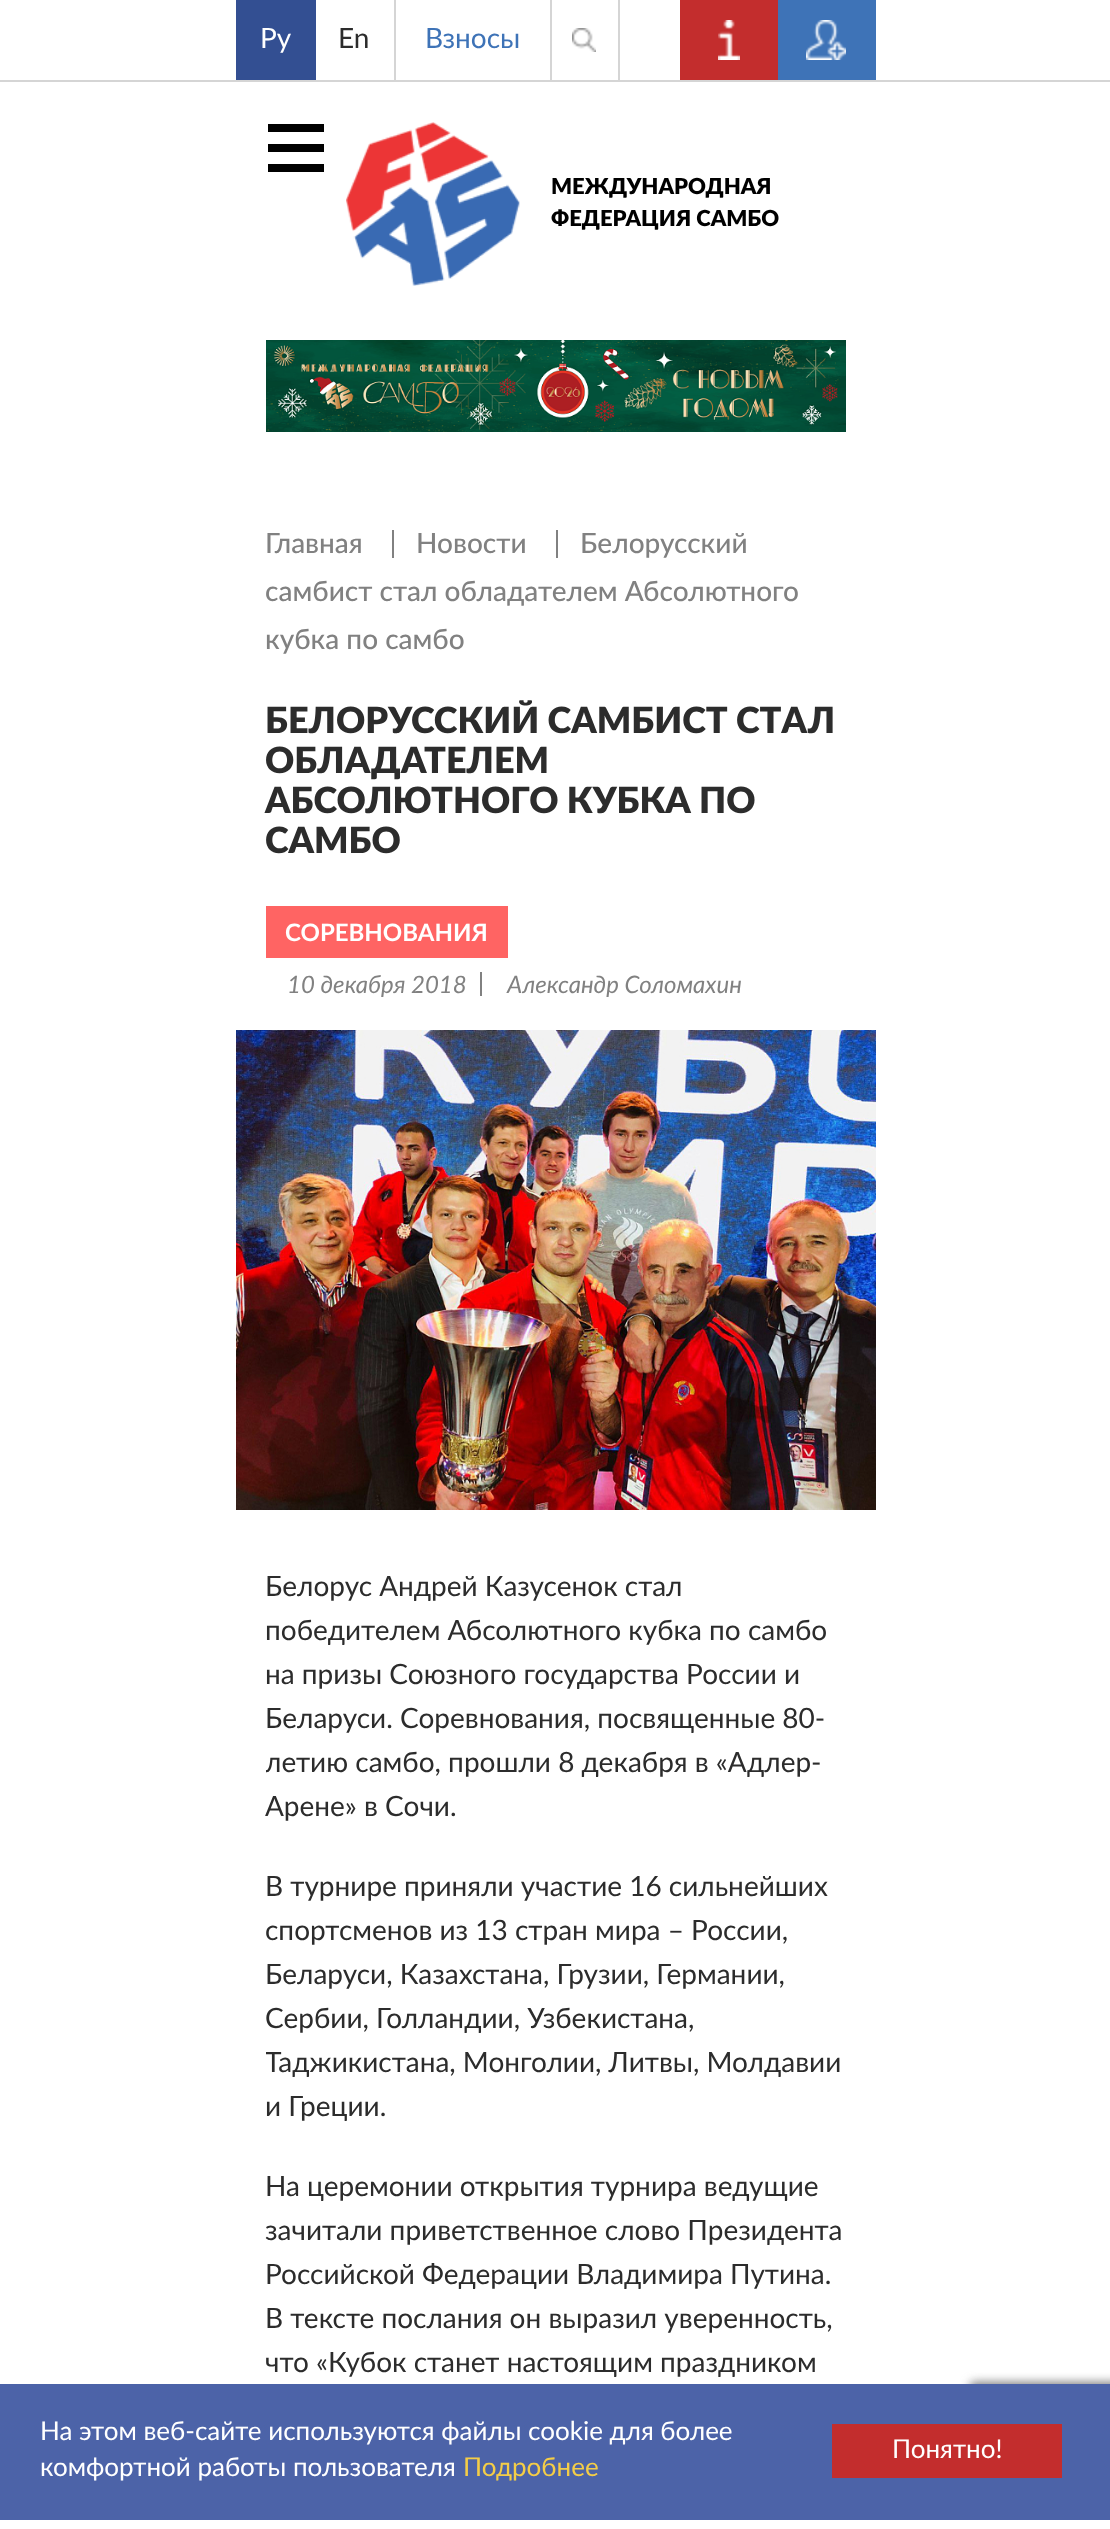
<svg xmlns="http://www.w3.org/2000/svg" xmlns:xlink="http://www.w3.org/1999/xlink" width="1110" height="2529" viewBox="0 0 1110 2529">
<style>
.cls-1{font:28px Lato;fill:#ffffff}
.cls-2{font:28px Lato;fill:#2c2c2c}
.cls-3{font:28px Lato;fill:#3e73b7}
.cls-4{font:900 22px Lato;fill:#000000}
.cls-5{font:500 28px Lato;fill:#818181}
.cls-6{font:900 36px Lato;fill:#2c2c2c}
.cls-7{font:bold 24px Lato;fill:#ffffff}
.cls-8{font:italic 24px Lato;fill:#818181}
.cls-9{font:26px Lato;fill:#ffffff}
.cls-10{font:26px Lato;fill:#f4cd47}
</style>
<defs>
<clipPath id="clip1"><rect x="266" y="1548" width="580" height="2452"/></clipPath>
</defs>
<rect width="100%" height="100%" fill="#ffffff"/>
<rect fill="#d5d5d5" x="0" y="80" width="1110" height="2"/>
<rect fill="#334f92" x="236" y="0" width="80" height="80"/>
<rect fill="#d5d5d5" x="394" y="0" width="2" height="80"/>
<rect fill="#d5d5d5" x="550" y="0" width="2" height="80"/>
<rect fill="#d5d5d5" x="618" y="0" width="2" height="80"/>
<image xlink:href="image0.png" x="572" y="28" width="24" height="24"/>
<rect fill="#c32d2d" x="680" y="0" width="98" height="80"/>
<image xlink:href="image1.png" x="718" y="20" width="22" height="40"/>
<rect fill="#3e73b7" x="778" y="0" width="98" height="80"/>
<image xlink:href="image2.png" x="806" y="20" width="40" height="40"/>
<rect fill="#000000" x="268" y="124" width="56" height="8"/>
<rect fill="#000000" x="268" y="164" width="56" height="8"/>
<rect fill="#000000" x="268" y="144" width="56" height="8"/>
<image xlink:href="image3.png" x="346" y="122" width="174" height="164"/>
<image xlink:href="image4.png" x="266" y="340" width="580" height="92"/>
<rect fill="#818181" x="556" y="530" width="2" height="28"/>
<rect fill="#818181" x="392" y="530" width="2" height="28"/>
<rect fill="#ff6463" x="266" y="906" width="242" height="52"/>
<rect fill="#818181" x="480" y="972" width="2" height="24"/>
<image xlink:href="image5.png" x="236" y="1030" width="640" height="480"/>
<rect fill="#808080" filter="blur(5px)" x="970" y="2382" width="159" height="120" rx="4"/>
<rect fill="#4c63a8" x="0" y="2384" width="1110" height="136"/>
<rect fill="#c32d2d" x="832" y="2424" width="230" height="54"/>
<text class="cls-1" x="260" y="48">Ру</text>
<text class="cls-2" x="338" y="48">En</text>
<text class="cls-3" x="425" y="48">Взносы</text>
<text class="cls-4"><tspan x="551" y="194">МЕЖДУНАРОДНАЯ</tspan><tspan x="551" y="226">ФЕДЕРАЦИЯ САМБО</tspan></text>
<text class="cls-5" x="580" y="553">Белорусский</text>
<text class="cls-5"><tspan x="265" y="601">самбист стал обладателем Абсолютного</tspan><tspan x="265" y="649">кубка по самбо</tspan></text>
<text class="cls-5" x="265" y="553">Главная</text>
<text class="cls-5" x="416" y="553">Новости</text>
<text class="cls-6"><tspan x="265" y="733">БЕЛОРУССКИЙ САМБИСТ СТАЛ</tspan><tspan x="265" y="773">ОБЛАДАТЕЛЕМ</tspan><tspan x="265" y="813">АБСОЛЮТНОГО КУБКА ПО</tspan><tspan x="265" y="853">САМБО</tspan></text>
<text class="cls-7" x="285" y="941">СОРЕВНОВАНИЯ</text>
<text class="cls-8" x="287" y="993">10 декабря 2018</text>
<text class="cls-8" x="507" y="993">Александр Соломахин</text>
<text class="cls-2"><tspan x="265" y="1596">Белорус Андрей Казусенок стал</tspan><tspan x="265" y="1640">победителем Абсолютного кубка по самбо</tspan><tspan x="265" y="1684">на призы Союзного государства России и</tspan><tspan x="265" y="1728">Беларуси. Соревнования, посвященные 80-</tspan></text>
<g clip-path="url(#clip1)">
<text class="cls-2" x="265" y="1772">летию самбо, прошли 8 декабря в «Адлер-</text>
</g>
<text class="cls-2" x="265" y="1816">Арене» в Сочи.</text>
<text class="cls-2"><tspan x="265" y="1896">В турнире приняли участие 16 сильнейших</tspan><tspan x="265" y="1940">спортсменов из 13 стран мира – России,</tspan><tspan x="265" y="1984">Беларуси, Казахстана, Грузии, Германии,</tspan><tspan x="265" y="2028">Сербии, Голландии, Узбекистана,</tspan></text>
<g clip-path="url(#clip1)">
<text class="cls-2" x="265" y="2072">Таджикистана, Монголии, Литвы, Молдавии</text>
</g>
<text class="cls-2" x="265" y="2116">и Греции.</text>
<text class="cls-2"><tspan x="265" y="2196">На церемонии открытия турнира ведущие</tspan><tspan x="265" y="2240">зачитали приветственное слово Президента</tspan><tspan x="265" y="2284">Российской Федерации Владимира Путина.</tspan><tspan x="265" y="2328">В тексте послания он выразил уверенность,</tspan><tspan x="265" y="2372">что «Кубок станет настоящим праздником</tspan></text>
<text class="cls-9"><tspan x="40" y="2440">На этом веб-сайте используются файлы cookie для более</tspan><tspan x="40" y="2476">комфортной работы пользователя</tspan></text>
<text class="cls-10" x="463" y="2476">Подробнее</text>
<text class="cls-9" x="892" y="2458">Понятно!</text>
</svg>
